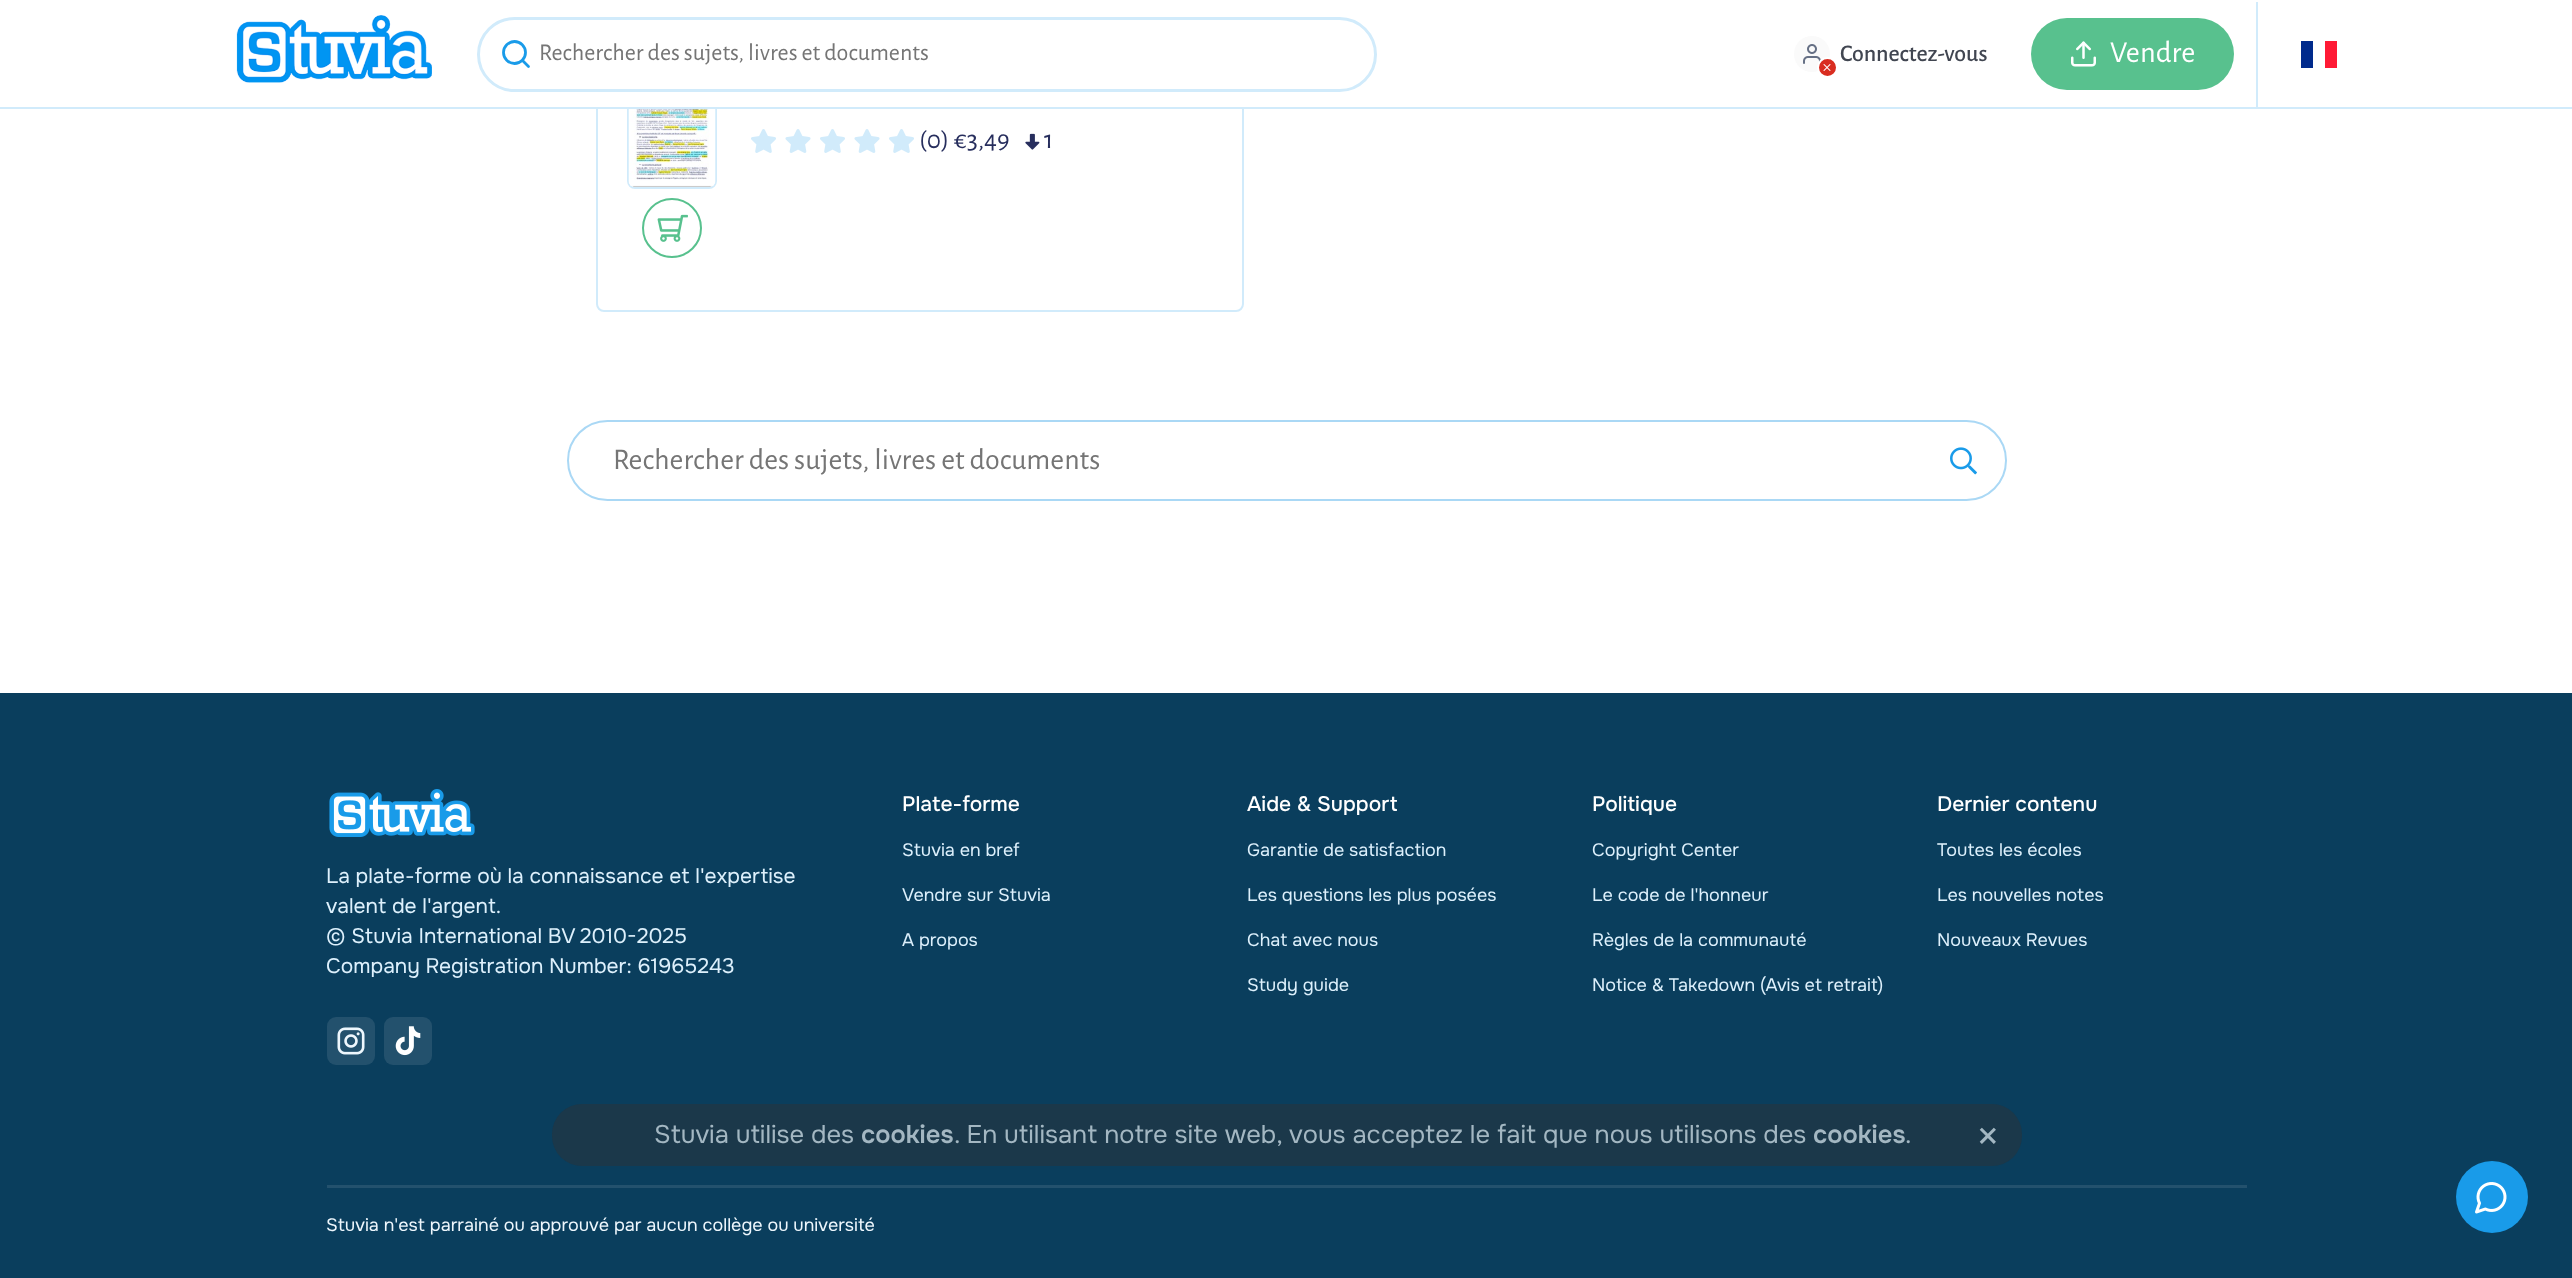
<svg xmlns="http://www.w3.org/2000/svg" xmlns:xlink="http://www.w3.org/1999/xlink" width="2572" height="1278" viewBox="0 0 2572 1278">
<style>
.cls-1{font:24px Alegreya Sans;fill:#757575}
.cls-2{font:500 24px Alegreya Sans;fill:#414651}
.cls-3{font:30.5px Alegreya Sans;fill:#ffffff}
.cls-4{font:27px Alegreya Sans;fill:#272e5d}
.cls-5{font:30px Alegreya Sans;fill:#757575}
.cls-6{font:21px Onest;fill:#ddf0fc}
.cls-7{font:500 21px Onest;fill:#ffffff}
.cls-8{font:18px Onest;fill:#ddf0fc}
.cls-9{font:18px Onest;fill:#eef7fd}
.cls-10{font:25.5px Onest;fill:#a3b7c2}
.cls-11{font:600 25.5px Onest;fill:#a3b7c2}
.cls-12{font:43px Onest;fill:#a3b7c2}
</style>
<rect width="100%" height="100%" fill="#ffffff"/>
<rect fill="none" stroke="#d1ebfb" stroke-width="2" x="597" y="39" width="646" height="272" rx="7"/>
<rect fill="none" stroke="#d1ebfb" stroke-width="2" x="628" y="70" width="88" height="118" rx="7"/>
<rect fill="#ffffff" x="596" y="38" width="648" height="69"/>
<rect fill="#d1ebfb" x="0" y="107" width="2572" height="2"/>
<image xlink:href="image0.png" x="236" y="15" width="196" height="68"/>
<rect fill="none" stroke="#d1ebfb" stroke-width="3" x="478.5" y="18.5" width="897" height="72" rx="36"/>
<circle fill="none" stroke="#199be9" stroke-width="2.8" cx="514.5" cy="52.5" r="11"/>
<path fill="none" stroke="#199be9" stroke-width="2.8" stroke-linecap="round" stroke-linejoin="round" d="M528.5 66.5L522.5 60.5"/>
<circle fill="#fafafa" cx="1812" cy="54" r="18"/>
<image xlink:href="image1.png" x="1803" y="44" width="18" height="20"/>
<circle fill="#d92d20" stroke="#ffffff" stroke-width="2" cx="1827.5" cy="67.5" r="9.5"/>
<image xlink:href="image2.png" x="1823" y="64" width="8" height="7"/>
<rect fill="#58c18e" x="2031" y="18" width="203" height="72" rx="36"/>
<image xlink:href="image3.png" x="2071" y="41" width="25" height="26"/>
<rect fill="#d1ebfb" x="2256" y="2" width="2" height="105"/>
<rect fill="#002a8c" x="2301" y="41" width="12" height="27"/>
<rect fill="#ff1a35" x="2325" y="41" width="12" height="27"/>
<image xlink:href="image4.png" x="628" y="109" width="88" height="78"/>
<circle fill="none" stroke="#58c18e" stroke-width="2" cx="672" cy="228" r="29"/>
<image xlink:href="image5.png" x="657" y="214" width="31" height="28"/>
<image xlink:href="image6.png" x="751" y="129" width="25" height="24"/>
<image xlink:href="image7.png" x="785" y="129" width="26" height="24"/>
<image xlink:href="image6.png" x="820" y="129" width="25" height="24"/>
<image xlink:href="image7.png" x="854" y="129" width="26" height="24"/>
<image xlink:href="image6.png" x="889" y="129" width="25" height="24"/>
<image xlink:href="image8.png" x="1025" y="133" width="15" height="17"/>
<rect fill="none" stroke="#aad8f5" stroke-width="2" x="568" y="421" width="1438" height="79" rx="39.5"/>
<image xlink:href="image9.png" x="1950" y="447" width="27" height="28"/>
<rect fill="#0a3e5d" x="0" y="693" width="2572" height="585"/>
<image xlink:href="image10.png" x="329" y="789" width="146" height="48"/>
<rect fill="#23516d" x="327" y="1017" width="48" height="48" rx="9"/>
<image xlink:href="image11.png" x="337" y="1027" width="28" height="28"/>
<rect fill="#23516d" x="384" y="1017" width="48" height="48" rx="9"/>
<image xlink:href="image12.png" x="395" y="1026" width="26" height="30"/>
<rect fill="#23516d" x="327" y="1185" width="1920" height="3"/>
<rect fill="#1b384a" x="552" y="1104" width="1470" height="62" rx="30"/>
<circle fill="#199be9" cx="2492" cy="1197" r="36"/>
<image xlink:href="image13.png" x="2475" y="1182" width="32" height="32"/>
<text class="cls-1" x="539" y="60">Rechercher des sujets, livres et documents</text>
<text class="cls-2" x="1840" y="61">Connectez-vous</text>
<text class="cls-3" x="2110" y="62">Vendre</text>
<text class="cls-4" x="919" y="148">(0) €3,49</text>
<text class="cls-4" x="1044" y="148">1</text>
<text class="cls-5" x="613" y="469">Rechercher des sujets, livres et documents</text>
<text class="cls-6"><tspan x="326" y="883">La plate-forme où la connaissance et l'expertise</tspan><tspan x="326" y="913">valent de l'argent.</tspan><tspan x="326" y="943">© Stuvia International BV 2010-2025</tspan><tspan x="326" y="973">Company Registration Number: 61965243</tspan></text>
<text class="cls-7" x="902" y="811">Plate-forme</text>
<text class="cls-8" x="902" y="856">Stuvia en bref</text>
<text class="cls-8" x="902" y="901">Vendre sur Stuvia</text>
<text class="cls-8" x="902" y="946">A propos</text>
<text class="cls-7" x="1247" y="811">Aide &amp; Support</text>
<text class="cls-8" x="1247" y="856">Garantie de satisfaction</text>
<text class="cls-8" x="1247" y="901">Les questions les plus posées</text>
<text class="cls-8" x="1247" y="946">Chat avec nous</text>
<text class="cls-8" x="1247" y="991">Study guide</text>
<text class="cls-7" x="1592" y="811">Politique</text>
<text class="cls-8" x="1592" y="856">Copyright Center</text>
<text class="cls-8" x="1592" y="901">Le code de l'honneur</text>
<text class="cls-8" x="1592" y="946">Règles de la communauté</text>
<text class="cls-8" x="1592" y="991">Notice &amp; Takedown (Avis et retrait)</text>
<text class="cls-7" x="1937" y="811">Dernier contenu</text>
<text class="cls-8" x="1937" y="856">Toutes les écoles</text>
<text class="cls-8" x="1937" y="901">Les nouvelles notes</text>
<text class="cls-8" x="1937" y="946">Nouveaux Revues</text>
<text class="cls-9" x="326" y="1231">Stuvia n'est parrainé ou approuvé par aucun collège ou université</text>
<text class="cls-10" x="654" y="1143">Stuvia utilise des</text>
<text class="cls-11" x="861" y="1143">cookies</text>
<text class="cls-10" x="954" y="1143">. En utilisant notre site web, vous acceptez le fait que nous utilisons des</text>
<text class="cls-11" x="1813" y="1143">cookies</text>
<text class="cls-10" x="1905" y="1143">.</text>
<text class="cls-12" x="1976" y="1151">×</text>
</svg>
